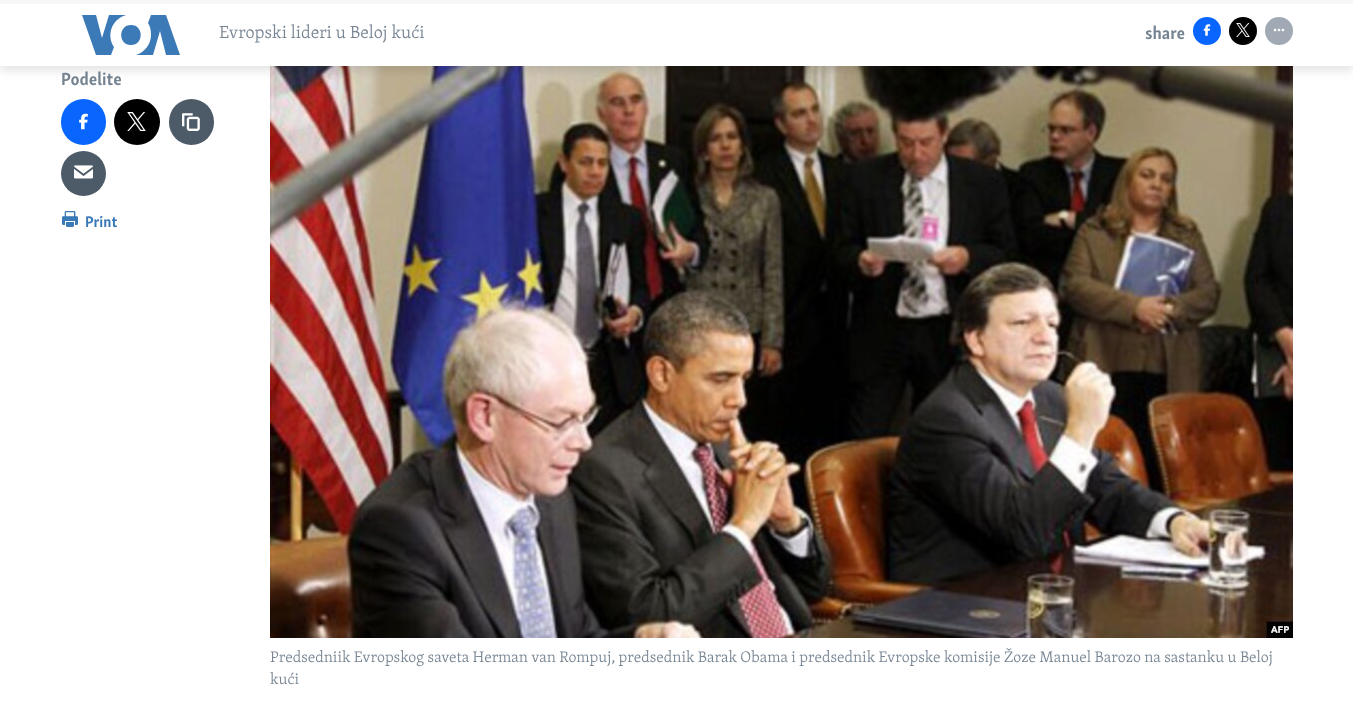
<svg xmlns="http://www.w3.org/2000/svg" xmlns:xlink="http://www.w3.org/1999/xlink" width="1353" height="715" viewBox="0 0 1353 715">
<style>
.cls-1{font:300 18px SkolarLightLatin;fill:#768492}
.cls-2{font:bold 18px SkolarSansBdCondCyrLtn;fill:#768492}
.cls-3{font:bold 15.75px SkolarSansBdCondCyrLtn;fill:#3a79b7}
.cls-4{font:300 15.75px SkolarLightLatin;fill:#768492}
</style>
<rect width="100%" height="100%" fill="#ffffff"/>
<image xlink:href="image8.png" x="270" y="66" width="1023" height="572"/>
<rect fill="#000000" fill-opacity="0.1" filter="blur(5px)" x="0" y="5" width="1353" height="66"/>
<rect fill="#ffffff" x="0" y="4" width="1353" height="62"/>
<rect fill="#f6f7f8" x="0" y="0" width="1353" height="4"/>
<path fill="#3b79b7" d="M114 47L111 55H96L82 15H96L102 38L109 15H126C112 19 106 35 114 47ZM131 25C118 25 118 45 131 45C144 45 144 25 131 25ZM151 35C151 44 145 52 136 55H153L160 31L166 55H180L166 15H151L148 23C150 26 151 30 151 35Z"/>
<circle fill="#0866ff" cx="1207" cy="31" r="14"/>
<image xlink:href="image0.png" x="1203" y="24" width="8" height="12"/>
<circle fill="#000000" cx="1243" cy="31" r="14"/>
<image xlink:href="image1.png" x="1236" y="23" width="14" height="14"/>
<circle fill="#a1aab4" cx="1279" cy="31" r="14"/>
<image xlink:href="image2.png" x="1273" y="28" width="12" height="4"/>
<rect fill="#0866ff" x="61" y="99" width="45" height="46" rx="22.5"/>
<image xlink:href="image3.png" x="79" y="113" width="9" height="17"/>
<circle fill="#000000" cx="137" cy="122" r="23"/>
<image xlink:href="image4.png" x="127" y="112" width="19" height="19"/>
<rect fill="#4d5a67" x="169" y="99" width="45" height="46" rx="22.5"/>
<image xlink:href="image5.png" x="182" y="113" width="18" height="18"/>
<circle fill="#4d5a67" cx="83.5" cy="173.5" r="22.5"/>
<image xlink:href="image6.png" x="74" y="165" width="19" height="14"/>
<image xlink:href="image7.png" x="62" y="211" width="16" height="16"/>
<text class="cls-1" x="219" y="38">Evropski lideri u Beloj kući</text>
<text class="cls-2" x="1145" y="39">share</text>
<text class="cls-2" x="61" y="85">Podelite</text>
<text class="cls-3" x="85" y="227">Print</text>
<text class="cls-4"><tspan x="270" y="662">Predsedniik Evropskog saveta Herman van Rompuj, predsednik Barak Obama i predsednik Evropske komisije Žoze Manuel Barozo na sastanku u Beloj</tspan><tspan x="270" y="684">kući</tspan></text>
</svg>
